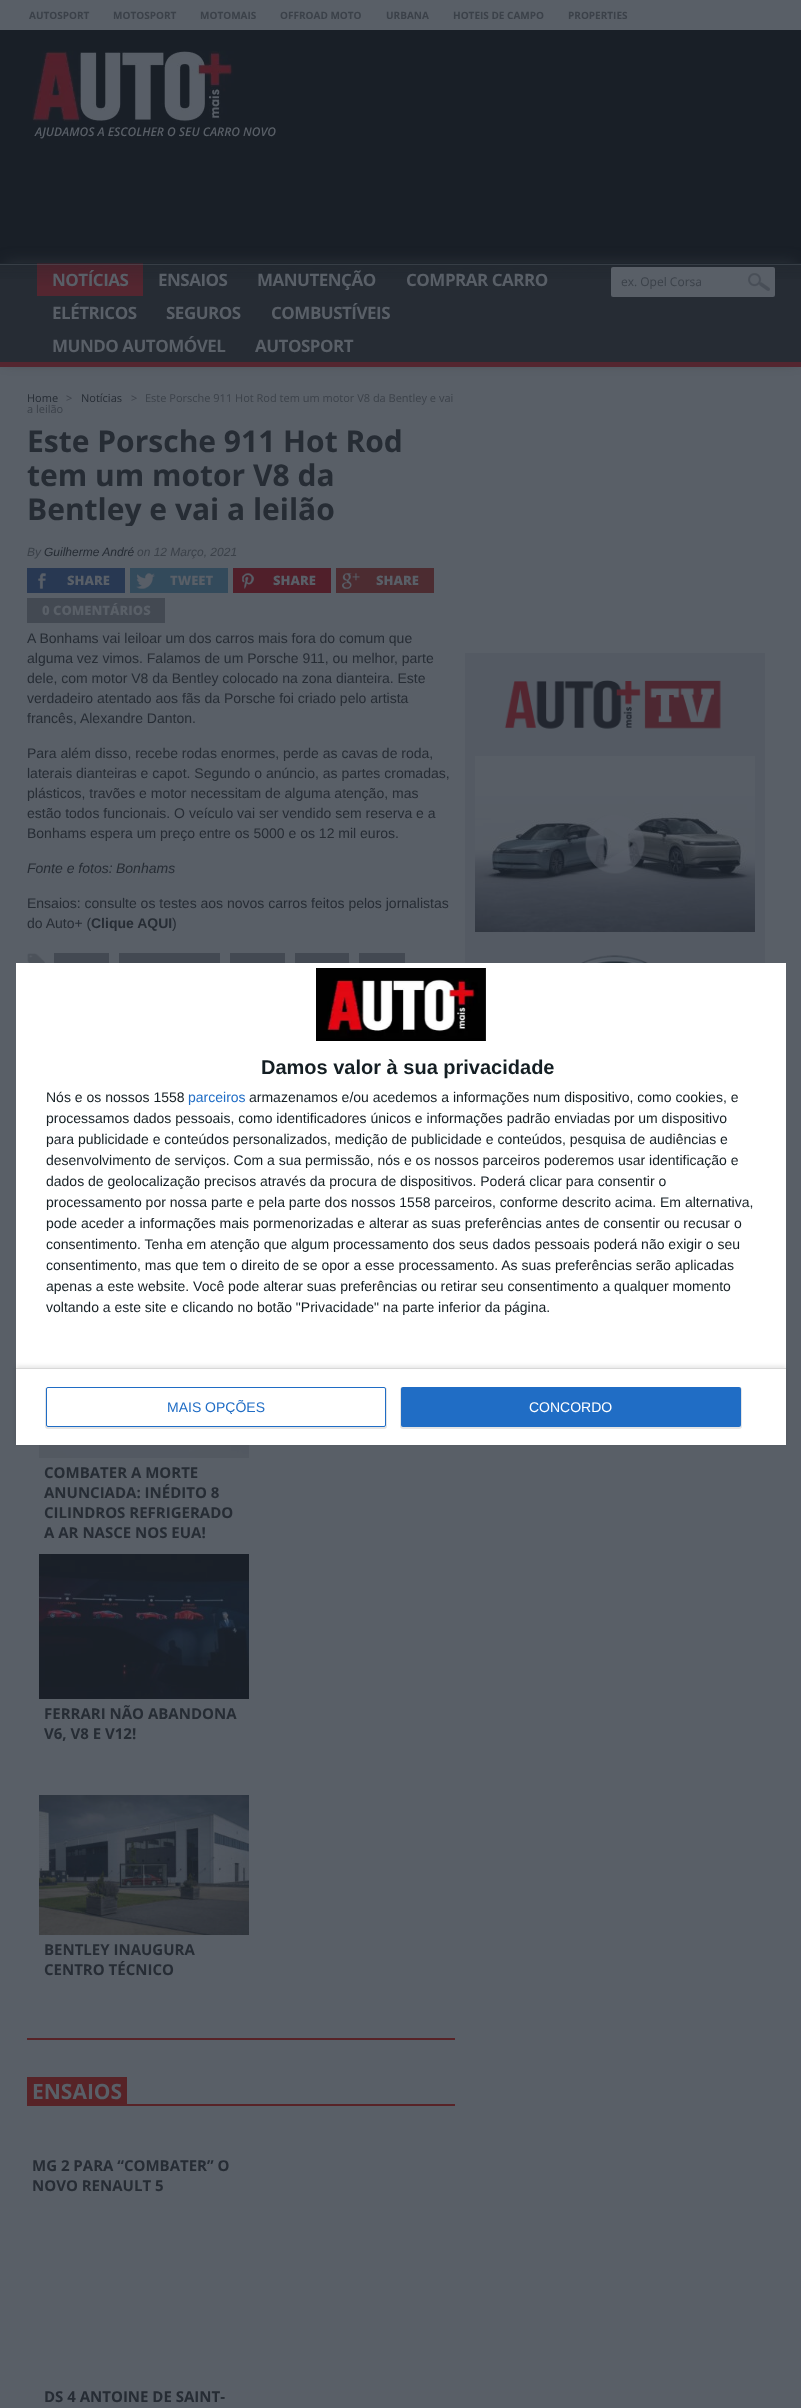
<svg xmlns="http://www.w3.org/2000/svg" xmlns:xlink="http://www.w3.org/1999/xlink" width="801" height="2408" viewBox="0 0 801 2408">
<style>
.cls-1{font:bold 10px Open Sans;fill:#3b4149}
.cls-2{font:italic 600 12px Open Sans;fill:#595f67}
.cls-3{font:bold 17px Open Sans;letter-spacing:-0.5px;fill:#595f67}
.cls-4{font:12px Open Sans;fill:#3b4149}
.cls-5{font:11px Open Sans;fill:#262c34}
.cls-6{font:11px Open Sans;fill:#3b4149}
.cls-7{font:bold 30px Open Sans;fill:#262c34}
.cls-8{font:italic 12px Liberation Sans;fill:#3b4149}
.cls-9{font:italic 12px Liberation Sans;fill:#262c34}
.cls-10{font:800 13px Open Sans;fill:#595f67}
.cls-11{font:14px Liberation Sans;fill:#262c34}
.cls-12{font:italic 14px Liberation Sans;fill:#262c34}
.cls-13{font:bold 14px Liberation Sans;fill:#262c34}
.cls-14{font:bold 15px Open Sans;fill:#262c34}
.cls-15{font:bold 21px Open Sans;fill:#595f67}
.cls-16{font:bold 20px Liberation Sans;fill:#141e23}
.cls-17{font:14px Liberation Sans;fill:#141e23}
.cls-18{font:14px Liberation Sans;fill:#206dc5}
.cls-19{font:14px Liberation Sans;fill:#ffffff}
</style>
<defs>
<clipPath id="clip1"><path d="M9 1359H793V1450H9ZM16 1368H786V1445H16Z" clip-rule="evenodd"/></clipPath>
<clipPath id="clip2"><rect x="27" y="424" width="428" height="102"/></clipPath>
<clipPath id="clip3"><rect x="167" y="1400" width="98" height="14"/></clipPath>
</defs>
<rect width="100%" height="100%" fill="#595f67"/>
<rect fill="#191f27" x="0" y="30" width="801" height="233"/>
<image xlink:href="image0.png" x="32" y="50" width="202" height="75"/>
<rect fill="#2e343c" filter="blur(7.5px)" x="5" y="264" width="791" height="94"/>
<rect fill="#262c34" x="0" y="263" width="801" height="99"/>
<image xlink:href="image1.png" x="0" y="263" width="801" height="16"/>
<rect fill="#542630" x="0" y="362" width="801" height="5"/>
<rect fill="#542630" x="37" y="263" width="106" height="33"/>
<image xlink:href="image2.png" x="37" y="263" width="106" height="23"/>
<rect fill="#595f67" x="611" y="267" width="164" height="30" rx="2"/>
<image xlink:href="image3.png" x="748" y="273" width="22" height="18"/>
<rect fill="#283852" x="27" y="568" width="98" height="25"/>
<image xlink:href="image4.png" x="38" y="573" width="8" height="16"/>
<rect fill="#334a5b" x="130" y="568" width="98" height="25"/>
<image xlink:href="image5.png" x="136" y="573" width="19" height="16"/>
<rect fill="#501f2a" x="233" y="568" width="98" height="25"/>
<image xlink:href="image6.png" x="242" y="573" width="12" height="16"/>
<rect fill="#4c2c31" x="336" y="568" width="98" height="25"/>
<image xlink:href="image7.png" x="342" y="573" width="18" height="16"/>
<rect fill="#434952" x="27" y="598" width="138" height="25"/>
<image xlink:href="image8.png" x="27" y="953" width="18" height="10"/>
<rect fill="#434952" x="54" y="953" width="55" height="10"/>
<rect fill="#434952" x="119" y="953" width="101" height="10"/>
<rect fill="#434952" x="230" y="953" width="55" height="10"/>
<rect fill="#434952" x="295" y="953" width="54" height="10"/>
<rect fill="#434952" x="359" y="953" width="46" height="10"/>
<rect fill="#572327" x="27" y="2038" width="428" height="2"/>
<image xlink:href="image9.png" x="39" y="1445" width="210" height="13"/>
<image xlink:href="image10.png" x="39" y="1554" width="210" height="145"/>
<image xlink:href="image11.png" x="39" y="1795" width="210" height="140"/>
<rect fill="#572327" x="27" y="2104" width="428" height="2"/>
<rect fill="#572327" x="27" y="2077" width="100" height="27"/>
<rect fill="#545a63" x="465" y="653" width="300" height="310"/>
<image xlink:href="image12.png" x="504" y="680" width="217" height="49"/>
<image xlink:href="image13.png" x="475" y="756" width="280" height="176"/>
<image xlink:href="image14.png" x="585" y="815" width="60" height="59"/>
<image xlink:href="image15.png" x="581" y="955" width="67" height="8"/>
<rect fill="#ffffff" x="16" y="963" width="770" height="482"/>
<image xlink:href="image16.png" x="316" y="968" width="170" height="73"/>
<g clip-path="url(#clip1)">
<rect fill="#000000" fill-opacity="0.1" filter="blur(2px)" x="16" y="1366" width="770" height="77"/>
</g>
<rect fill="#d8d8d8" x="16" y="1368" width="770" height="1"/>
<rect fill="#000000" fill-opacity="0.1" filter="blur(0.5px)" x="45" y="1387" width="342" height="42" rx="3"/>
<rect fill="#ffffff" stroke="#206dc5" x="46.5" y="1387.5" width="339" height="39" rx="1.5"/>
<rect fill="#000000" fill-opacity="0.1" filter="blur(0.5px)" x="400" y="1387" width="342" height="42" rx="3"/>
<rect fill="#206dc5" x="401" y="1387" width="340" height="40" rx="2"/>
<text class="cls-1" x="29" y="19">AUTOSPORT</text>
<text class="cls-1" x="113" y="19">MOTOSPORT</text>
<text class="cls-1" x="200" y="19">MOTOMAIS</text>
<text class="cls-1" x="280" y="19">OFFROAD MOTO</text>
<text class="cls-1" x="386" y="19">URBANA</text>
<text class="cls-1" x="453" y="19">HOTEIS DE CAMPO</text>
<text class="cls-1" x="568" y="19">PROPERTIES</text>
<text class="cls-2" x="35" y="136">AJUDAMOS A ESCOLHER O SEU CARRO NOVO</text>
<text class="cls-3" x="52" y="286">NOTÍCIAS</text>
<text class="cls-3" x="158" y="286">ENSAIOS</text>
<text class="cls-3" x="257" y="286">MANUTENÇÃO</text>
<text class="cls-3" x="406" y="286">COMPRAR CARRO</text>
<text class="cls-3" x="52" y="319">ELÉTRICOS</text>
<text class="cls-3" x="166" y="319">SEGUROS</text>
<text class="cls-3" x="271" y="319">COMBUSTÍVEIS</text>
<text class="cls-3" x="52" y="352">MUNDO AUTOMÓVEL</text>
<text class="cls-3" x="255" y="352">AUTOSPORT</text>
<text class="cls-4" x="621" y="286">ex. Opel Corsa</text>
<text class="cls-5" x="27" y="402">Home</text>
<text class="cls-6" x="66" y="402">&gt;</text>
<text class="cls-5" x="81" y="402">Notícias</text>
<text class="cls-6" x="131" y="402">&gt;</text>
<text class="cls-6" x="145" y="402">Este Porsche 911 Hot Rod tem um motor V8 da Bentley e vai</text>
<text class="cls-6" x="27" y="413">a leilão</text>
<text class="cls-7"><tspan x="27" y="452">Este Porsche 911 Hot Rod</tspan><tspan x="27" y="486">tem um motor V8 da</tspan></text>
<g clip-path="url(#clip2)">
<text class="cls-7" x="27" y="520">Bentley e vai a leilão</text>
</g>
<text class="cls-8" x="27" y="556">By</text>
<text class="cls-9" x="44" y="556">Guilherme André</text>
<text class="cls-8" x="137" y="556">on 12 Março, 2021</text>
<text class="cls-10" x="67" y="585">SHARE</text>
<text class="cls-10" x="170" y="585">TWEET</text>
<text class="cls-10" x="273" y="585">SHARE</text>
<text class="cls-10" x="376" y="585">SHARE</text>
<text class="cls-10" x="42" y="615">0 COMENTÁRIOS</text>
<text class="cls-11"><tspan x="27" y="643">A Bonhams vai leiloar um dos carros mais fora do comum que</tspan><tspan x="27" y="663">alguma vez vimos. Falamos de um Porsche 911, ou melhor, parte</tspan><tspan x="27" y="683">dele, com motor V8 da Bentley colocado na zona dianteira. Este</tspan><tspan x="27" y="703">verdadeiro atentado aos fãs da Porsche foi criado pelo artista</tspan><tspan x="27" y="723">francês, Alexandre Danton.</tspan></text>
<text class="cls-11"><tspan x="27" y="758">Para além disso, recebe rodas enormes, perde as cavas de roda,</tspan><tspan x="27" y="778">laterais dianteiras e capot. Segundo o anúncio, as partes cromadas,</tspan><tspan x="27" y="798">plásticos, travões e motor necessitam de alguma atenção, mas</tspan><tspan x="27" y="818">estão todos funcionais. O veículo vai ser vendido sem reserva e a</tspan><tspan x="27" y="838">Bonhams espera um preço entre os 5000 e os 12 mil euros.</tspan></text>
<text class="cls-12" x="27" y="873">Fonte e fotos:</text>
<text class="cls-12" x="116" y="873">Bonhams</text>
<text class="cls-11"><tspan x="27" y="908">Ensaios: consulte os testes aos novos carros feitos pelos jornalistas</tspan><tspan x="27" y="928">do Auto+ (</tspan></text>
<text class="cls-13" x="91" y="928">Clique AQUI</text>
<text class="cls-11" x="172" y="928">)</text>
<text class="cls-14"><tspan x="44" y="1478">COMBATER A MORTE</tspan><tspan x="44" y="1498">ANUNCIADA: INÉDITO 8</tspan><tspan x="44" y="1518">CILINDROS REFRIGERADO</tspan><tspan x="44" y="1538">A AR NASCE NOS EUA!</tspan></text>
<text class="cls-14"><tspan x="44" y="1719">FERRARI NÃO ABANDONA</tspan><tspan x="44" y="1739">V6, V8 E V12!</tspan></text>
<text class="cls-14"><tspan x="44" y="1955">BENTLEY INAUGURA</tspan><tspan x="44" y="1975">CENTRO TÉCNICO</tspan></text>
<text class="cls-15" x="32" y="2099">ENSAIOS</text>
<text class="cls-14"><tspan x="32" y="2171">MG 2 PARA “COMBATER” O</tspan><tspan x="32" y="2191">NOVO RENAULT 5</tspan></text>
<text class="cls-14" x="44" y="2402">DS 4 ANTOINE DE SAINT-</text>
<text class="cls-16" x="261" y="1074">Damos valor à sua privacidade</text>
<text class="cls-17" x="46" y="1102">Nós e os nossos 1558</text>
<text class="cls-18" x="188" y="1102">parceiros</text>
<text class="cls-17" x="249" y="1102">armazenamos e/ou acedemos a informações num dispositivo, como cookies, e</text>
<text class="cls-17"><tspan x="46" y="1123">processamos dados pessoais, como identificadores únicos e informações padrão enviadas por um dispositivo</tspan><tspan x="46" y="1144">para publicidade e conteúdos personalizados, medição de publicidade e conteúdos, pesquisa de audiências e</tspan><tspan x="46" y="1165">desenvolvimento de serviços. Com a sua permissão, nós e os nossos parceiros poderemos usar identificação e</tspan><tspan x="46" y="1186">dados de geolocalização precisos através da procura de dispositivos. Poderá clicar para consentir o</tspan><tspan x="46" y="1207">processamento por nossa parte e pela parte dos nossos 1558 parceiros, conforme descrito acima. Em alternativa,</tspan><tspan x="46" y="1228">pode aceder a informações mais pormenorizadas e alterar as suas preferências antes de consentir ou recusar o</tspan><tspan x="46" y="1249">consentimento. Tenha em atenção que algum processamento dos seus dados pessoais poderá não exigir o seu</tspan><tspan x="46" y="1270">consentimento, mas que tem o direito de se opor a esse processamento. As suas preferências serão aplicadas</tspan><tspan x="46" y="1291">apenas a este website. Você pode alterar suas preferências ou retirar seu consentimento a qualquer momento</tspan><tspan x="46" y="1312">voltando a este site e clicando no botão "Privacidade" na parte inferior da página.</tspan></text>
<g clip-path="url(#clip3)">
<text class="cls-18" x="167" y="1412">MAIS OPÇÕES</text>
</g>
<text class="cls-19" x="529" y="1412">CONCORDO</text>
</svg>
